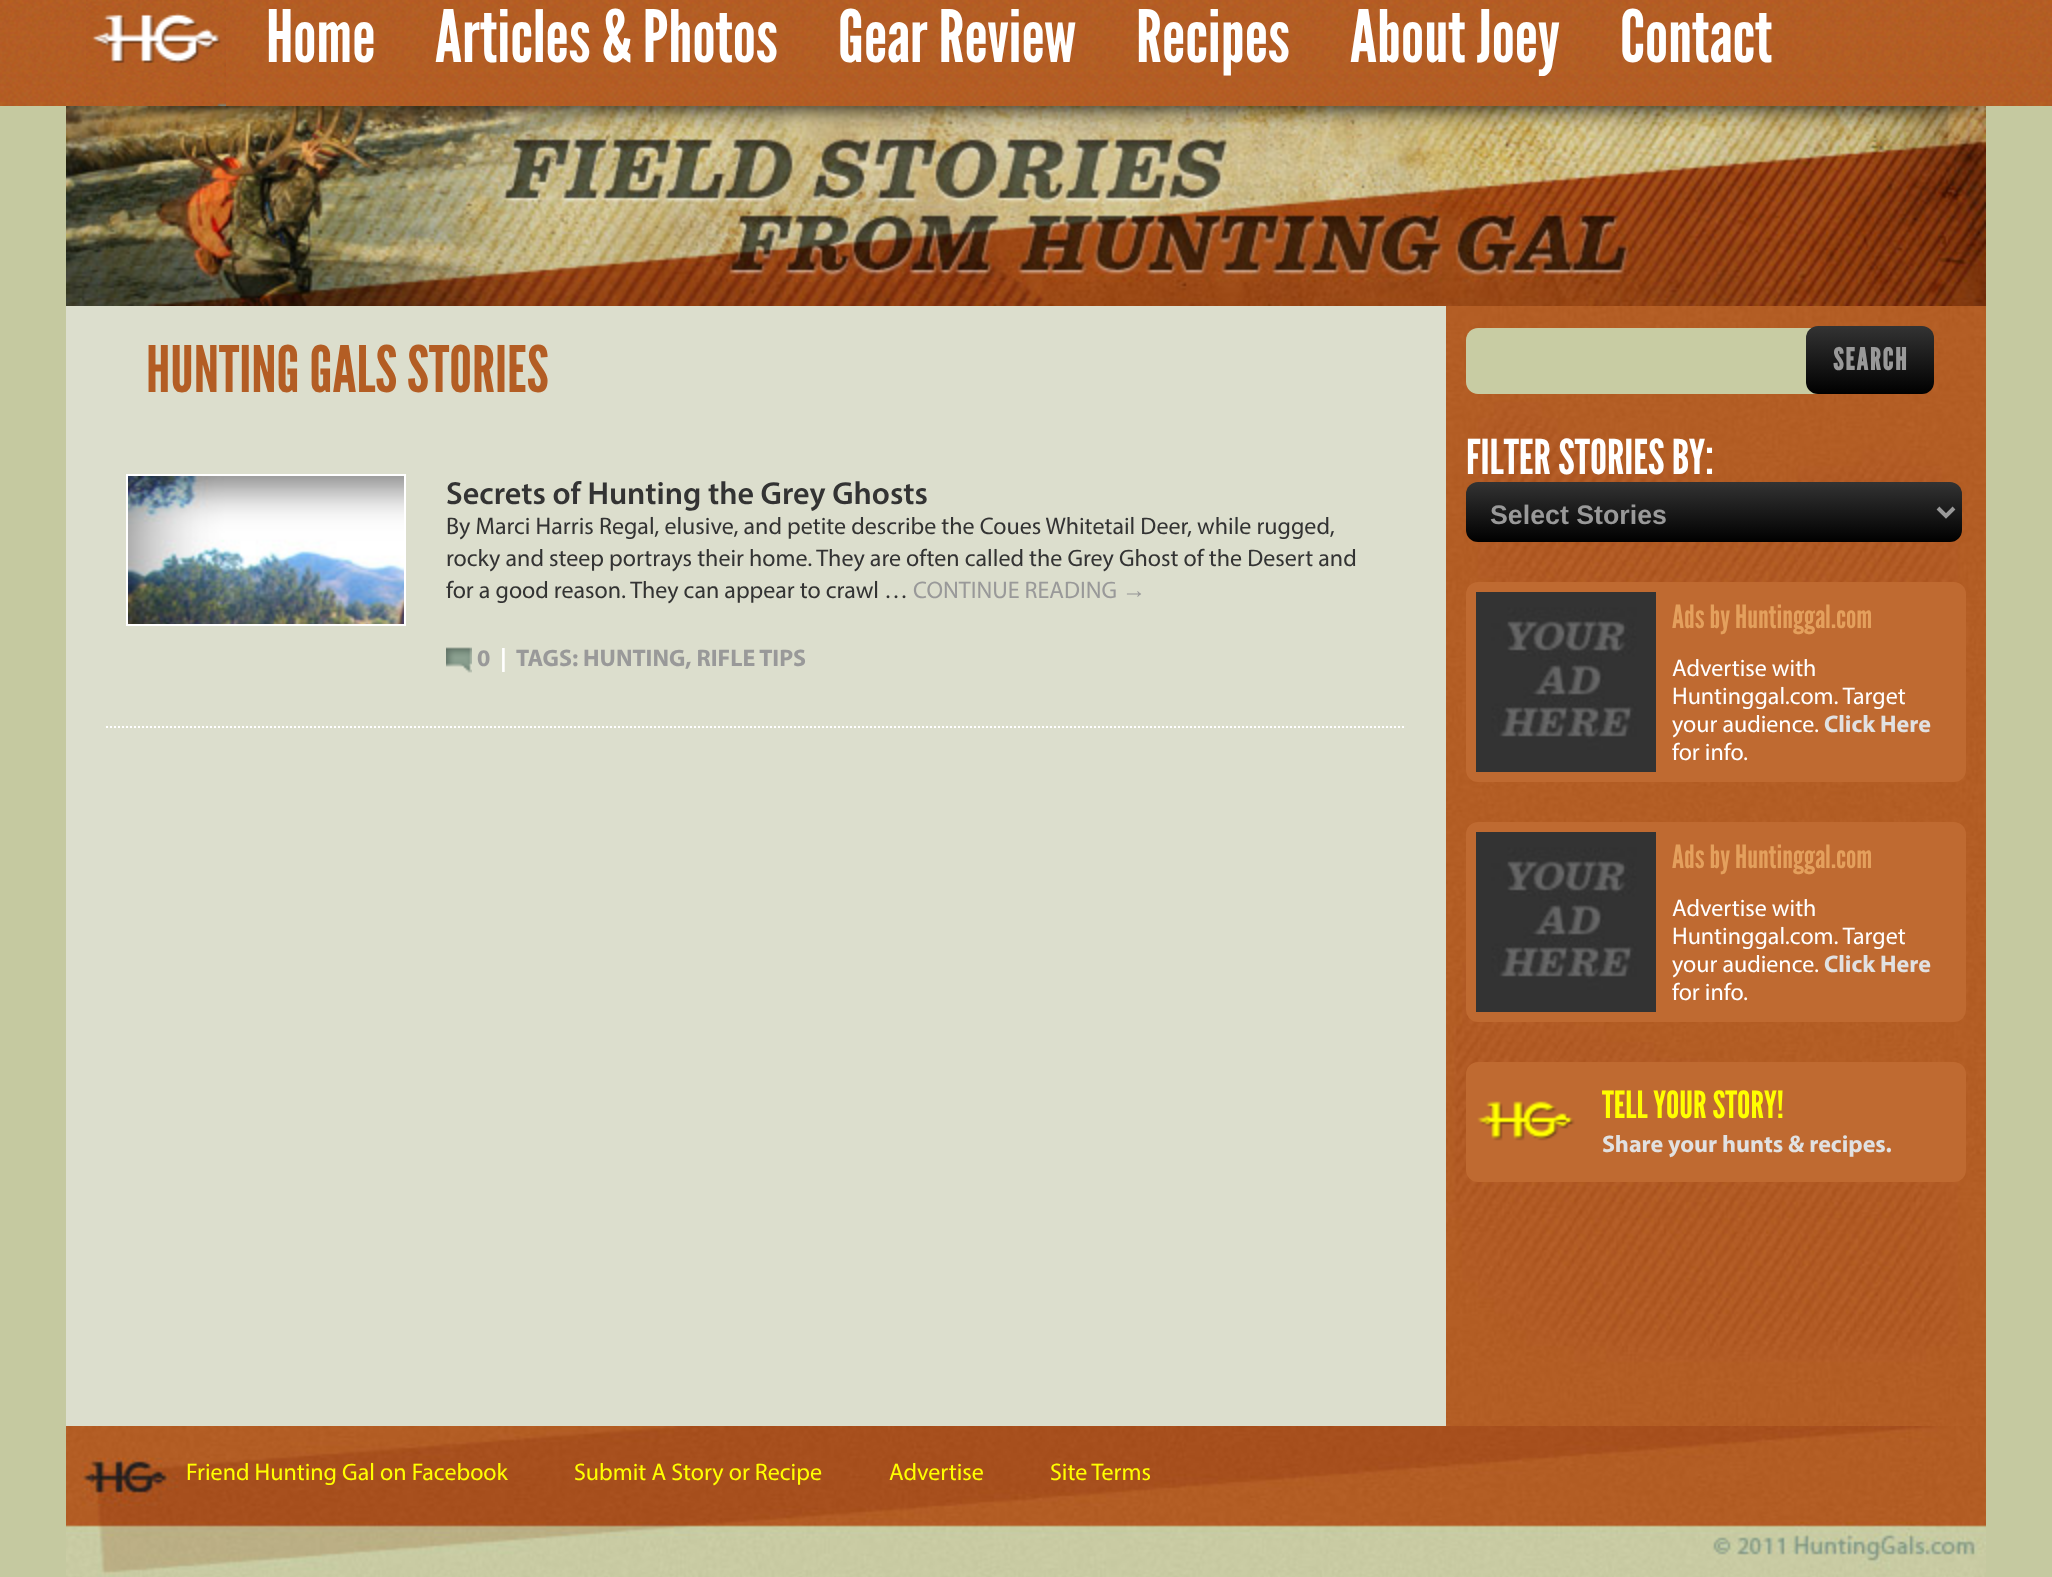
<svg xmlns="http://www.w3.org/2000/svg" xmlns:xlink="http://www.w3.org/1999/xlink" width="2052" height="1577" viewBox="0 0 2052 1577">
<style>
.cls-1{font:72px League Gothic;fill:#ffffff}
.cls-2{font:64px League Gothic;fill:#b35d24}
.cls-3{font:600 32px Myriad;fill:#333333}
.cls-4{font:24px Myriad;fill:#333333}
.cls-5{font:24px Myriad;fill:#999999}
.cls-6{font:24px Liberation Sans;fill:#999999}
.cls-7{font:bold 24px Myriad;fill:#999999}
.cls-8{font:bold 24px Myriad;fill:#ffffff}
.cls-9{font:bold 30px League Gothic;letter-spacing:2px;fill:#999999}
.cls-10{font:48px League Gothic;fill:#ffffff}
.cls-11{font:bold 26.75px Liberation Sans;fill:#999999}
.cls-12{font:32px League Gothic;fill:#e4a05d}
.cls-13{font:24px Myriad;fill:#ffffff}
.cls-14{font:bold 24px Myriad;fill:#e1e1e1}
.cls-15{font:37.5px League Gothic;fill:#ffff00}
.cls-16{font:24px Myriad;fill:#ffff00}
</style>
<defs>
<linearGradient id="g1" gradientUnits="userSpaceOnUse" x1="1806" y1="326" x2="1806" y2="394"><stop offset="0" stop-color="#333333"/><stop offset="1" stop-color="#000000"/></linearGradient>
<linearGradient id="g2" gradientUnits="userSpaceOnUse" x1="1466" y1="482" x2="1466" y2="542"><stop offset="0" stop-color="#333333"/><stop offset="1" stop-color="#000000"/></linearGradient>
</defs>
<rect width="100%" height="100%" fill="#c5c9a0"/>
<image xlink:href="image0.png" x="0" y="0" width="2052" height="106"/>
<image xlink:href="image1.png" x="66" y="0" width="1920" height="106"/>
<image xlink:href="image2.png" x="86" y="0" width="140" height="106"/>
<image xlink:href="image3.png" x="66" y="106" width="1920" height="200"/>
<rect fill="#dcdecd" x="66" y="306" width="1380" height="1120"/>
<path fill="none" stroke="#ffffff" stroke-width="2" stroke-dasharray="2 2" d="M106 727H1406"/>
<rect fill="none" stroke="#ffffff" stroke-width="2" x="127" y="475" width="278" height="150"/>
<image xlink:href="image4.png" x="128" y="476" width="276" height="148"/>
<image xlink:href="image5.png" x="446" y="647" width="26" height="26"/>
<image xlink:href="image6.png" x="1446" y="306" width="540" height="1120"/>
<path fill="#c8cca3" d="M1478 328H1822V394H1478C1471.5 394 1466 388.5 1466 382V340C1466 333.5 1471.5 328 1478 328Z"/>
<rect fill="url(#g1)" x="1806" y="326" width="128" height="68" rx="12"/>
<rect fill="url(#g2)" x="1466" y="482" width="496" height="60" rx="12"/>
<path fill="none" stroke="#999999" stroke-width="4" d="M1938 508L1946 516L1954 508"/>
<rect fill="#bf6a31" x="1466" y="582" width="500" height="200" rx="12"/>
<image xlink:href="image7.png" x="1476" y="592" width="180" height="180"/>
<rect fill="#bf6a31" x="1466" y="822" width="500" height="200" rx="12"/>
<image xlink:href="image7.png" x="1476" y="832" width="180" height="180"/>
<rect fill="#bf6a31" x="1466" y="1062" width="500" height="120" rx="12"/>
<image xlink:href="image8.png" x="1477" y="1101" width="98" height="40"/>
<image xlink:href="image9.png" x="66" y="1426" width="1920" height="151"/>
<text class="cls-1" x="266" y="62">Home</text>
<text class="cls-1" x="435" y="62">Articles &amp; Photos</text>
<text class="cls-1" x="838" y="62">Gear Review</text>
<text class="cls-1" x="1136" y="62">Recipes</text>
<text class="cls-1" x="1350" y="62">About Joey</text>
<text class="cls-1" x="1620" y="62">Contact</text>
<text class="cls-2" x="146" y="392">HUNTING GALS STORIES</text>
<text class="cls-3" x="446" y="504">Secrets of Hunting the Grey Ghosts</text>
<text class="cls-4"><tspan x="446" y="534">By Marci Harris Regal, elusive, and petite describe the Coues Whitetail Deer, while rugged,</tspan><tspan x="446" y="566">rocky and steep portrays their home. They are often called the Grey Ghost of the Desert and</tspan><tspan x="446" y="598">for a good reason. They can appear to crawl …</tspan></text>
<text class="cls-5" x="913" y="598">CONTINUE READING</text>
<text class="cls-6" x="1122" y="598">→</text>
<text class="cls-7" x="477" y="666">0</text>
<text class="cls-8" x="500" y="666">|</text>
<text class="cls-7" x="516" y="666">TAGS: HUNTING, RIFLE TIPS</text>
<text class="cls-9" x="1833" y="370">SEARCH</text>
<text class="cls-10" x="1466" y="474">FILTER STORIES BY:</text>
<text class="cls-11" x="1490" y="524">Select Stories</text>
<text class="cls-12" x="1672" y="628">Ads by Huntinggal.com</text>
<text class="cls-13"><tspan x="1672" y="676">Advertise with</tspan><tspan x="1672" y="704">Huntinggal.com. Target</tspan><tspan x="1672" y="732">your audience.</tspan></text>
<text class="cls-14" x="1824" y="732">Click Here</text>
<text class="cls-13" x="1672" y="760">for info.</text>
<text class="cls-12" x="1672" y="868">Ads by Huntinggal.com</text>
<text class="cls-13"><tspan x="1672" y="916">Advertise with</tspan><tspan x="1672" y="944">Huntinggal.com. Target</tspan><tspan x="1672" y="972">your audience.</tspan></text>
<text class="cls-14" x="1824" y="972">Click Here</text>
<text class="cls-13" x="1672" y="1000">for info.</text>
<text class="cls-15" x="1602" y="1118">TELL YOUR STORY!</text>
<text class="cls-14" x="1602" y="1152">Share your hunts &amp; recipes.</text>
<text class="cls-16" x="186" y="1480">Friend Hunting Gal on Facebook</text>
<text class="cls-16" x="574" y="1480">Submit A Story or Recipe</text>
<text class="cls-16" x="889" y="1480">Advertise</text>
<text class="cls-16" x="1050" y="1480">Site Terms</text>
</svg>
